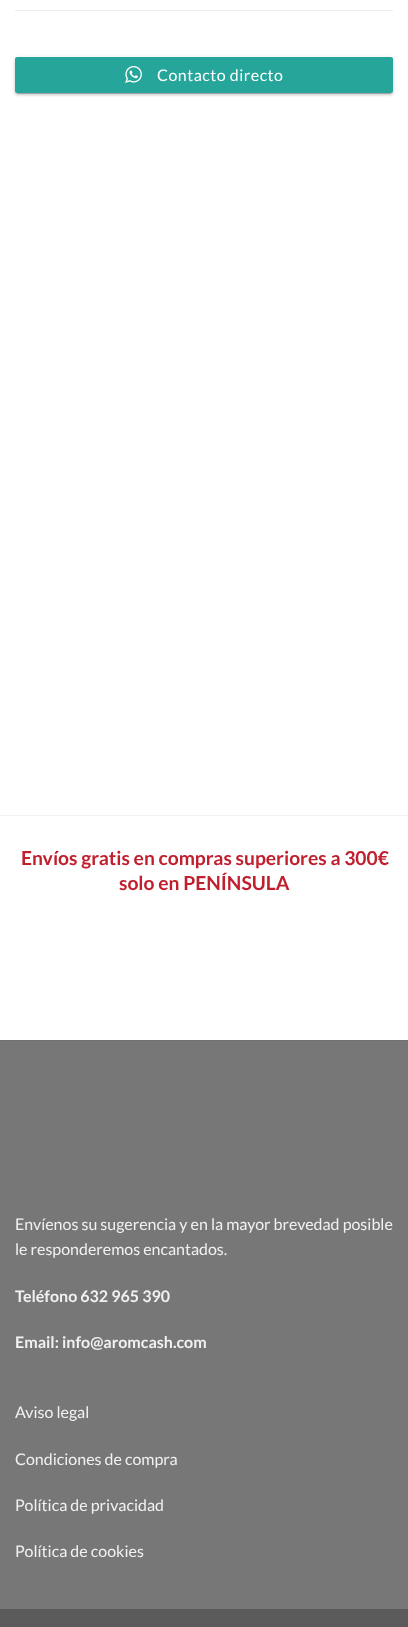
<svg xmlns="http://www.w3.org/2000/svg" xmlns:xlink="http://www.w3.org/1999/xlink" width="408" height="1627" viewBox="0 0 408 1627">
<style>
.cls-1{font:16px Lato;letter-spacing:0.5px;fill:#ffffff}
.cls-2{font:bold 19.25px Lato;fill:#c01f2d}
.cls-3{font:16px Lato;fill:#f1f1f1}
.cls-4{font:bold 16px Lato;fill:#f1f1f1}
</style>
<rect width="100%" height="100%" fill="#ffffff"/>
<rect fill="#ececec" x="15" y="10" width="378" height="1"/>
<rect fill="#000000" fill-opacity="0.2" filter="blur(0.5px)" x="17" y="62" width="374" height="32"/>
<rect fill="#000000" fill-opacity="0.12" filter="blur(2.5px)" x="15" y="58" width="378" height="36" rx="2"/>
<rect fill="#000000" fill-opacity="0.14" filter="blur(1px)" x="15" y="59" width="378" height="36" rx="2"/>
<rect fill="#26a69a" x="15" y="57" width="378" height="36" rx="2"/>
<image xlink:href="image0.png" x="125" y="66" width="17" height="17"/>
<rect fill="#f2f2f2" x="0" y="815" width="408" height="1"/>
<rect fill="#777777" x="0" y="1041" width="408" height="568"/>
<rect fill="#717171" x="0" y="1040" width="408" height="1"/>
<rect fill="#5b5b5b" x="0" y="1609" width="408" height="18"/>
<text class="cls-1" x="157" y="81">Contacto directo</text>
<text class="cls-2" x="21" y="865">Envíos gratis en compras superiores a 300€</text>
<text class="cls-2" x="119" y="890">solo en PENÍNSULA</text>
<text class="cls-3"><tspan x="15" y="1230">Envíenos su sugerencia y en la mayor brevedad posible</tspan><tspan x="15" y="1255">le responderemos encantados.</tspan></text>
<text class="cls-4" x="15" y="1302">Teléfono 632 965 390</text>
<text class="cls-4" x="15" y="1348">Email: info@aromcash.com</text>
<text class="cls-3" x="15" y="1418">Aviso legal</text>
<text class="cls-3" x="15" y="1465">Condiciones de compra</text>
<text class="cls-3" x="15" y="1511">Política de privacidad</text>
<text class="cls-3" x="15" y="1557">Política de cookies</text>
</svg>
